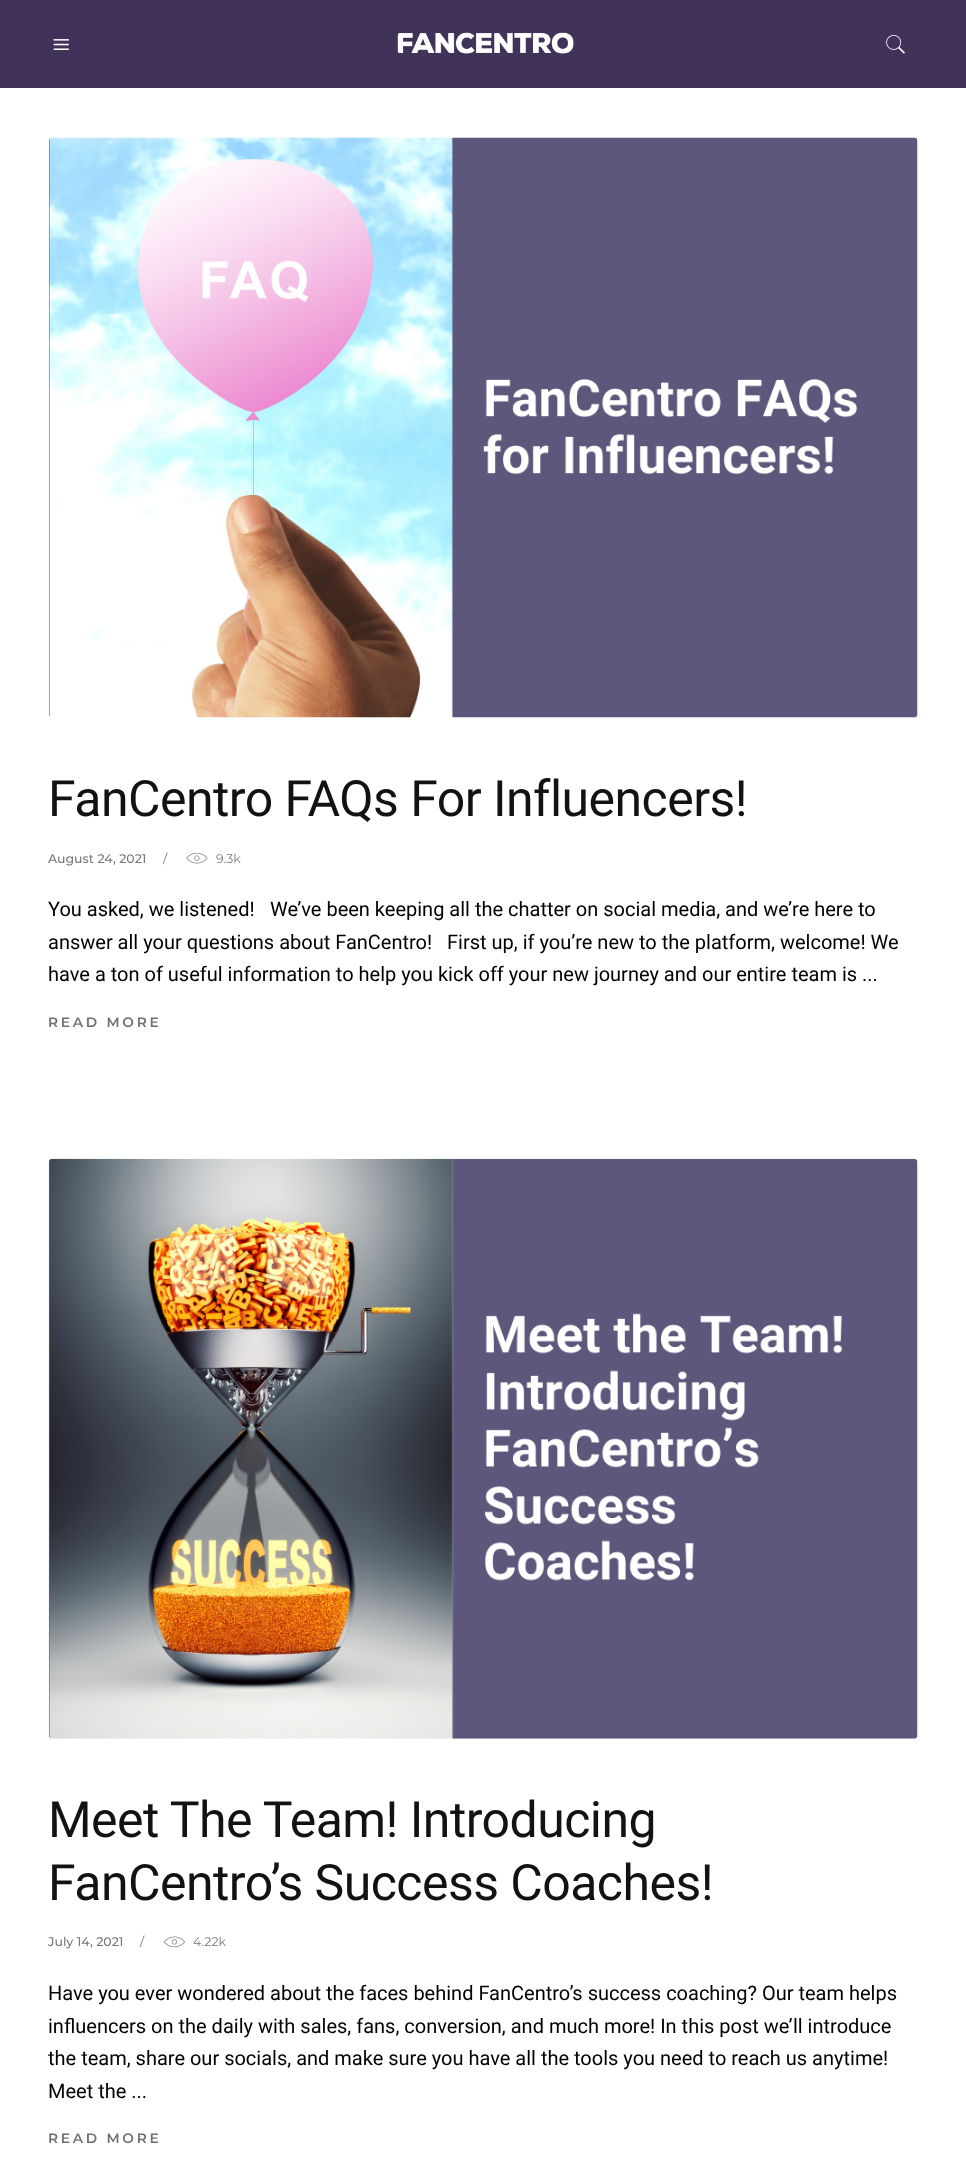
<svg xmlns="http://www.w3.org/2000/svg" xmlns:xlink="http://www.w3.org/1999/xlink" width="966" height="2162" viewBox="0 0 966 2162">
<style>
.cls-1{font:50px Roboto;letter-spacing:-0.55px;fill:#121212}
.cls-2{font:500 12.5px Montserrat;fill:#777777}
.cls-3{font:12.5px Montserrat;fill:#777777}
.cls-4{font:20px Roboto;fill:#000000}
.cls-5{font:600 13.75px Montserrat;letter-spacing:2.75px;fill:#707070}
</style>
<rect width="100%" height="100%" fill="#ffffff"/>
<rect fill="#413259" x="0" y="0" width="966" height="88"/>
<image xlink:href="image0.png" x="53" y="39" width="16" height="11"/>
<image xlink:href="image1.png" x="397" y="32" width="177" height="22"/>
<image xlink:href="image2.png" x="886" y="35" width="19" height="19"/>
<image xlink:href="image3.png" x="48" y="137" width="870" height="581"/>
<image xlink:href="image4.png" x="186" y="852" width="22" height="12"/>
<image xlink:href="image5.png" x="48" y="1158" width="870" height="581"/>
<image xlink:href="image6.png" x="163" y="1936" width="22" height="12"/>
<text class="cls-1" x="48" y="816">FanCentro FAQs For Influencers!</text>
<text class="cls-2" x="48" y="863">August 24, 2021</text>
<text class="cls-3" x="163" y="863">/</text>
<text class="cls-3" x="216" y="863">9.3k</text>
<text class="cls-4" x="48" y="916">You asked, we listened!</text>
<text class="cls-4" x="270" y="916">We’ve been keeping all the chatter on social media, and we’re here to</text>
<text class="cls-4" x="48" y="949">answer all your questions about FanCentro!</text>
<text class="cls-4" x="447" y="949">First up, if you’re new to the platform, welcome! We</text>
<text class="cls-4" x="48" y="981">have a ton of useful information to help you kick off your new journey and our entire team is ...</text>
<text class="cls-5" x="48" y="1027">READ MORE</text>
<text class="cls-1"><tspan x="48" y="1837">Meet The Team! Introducing</tspan><tspan x="48" y="1900">FanCentro’s Success Coaches!</tspan></text>
<text class="cls-2" x="48" y="1946">July 14, 2021</text>
<text class="cls-3" x="140" y="1946">/</text>
<text class="cls-3" x="193" y="1946">4.22k</text>
<text class="cls-4"><tspan x="48" y="2000">Have you ever wondered about the faces behind FanCentro’s success coaching? Our team helps</tspan><tspan x="48" y="2033">influencers on the daily with sales, fans, conversion, and much more! In this post we’ll introduce</tspan><tspan x="48" y="2065">the team, share our socials, and make sure you have all the tools you need to reach us anytime!</tspan><tspan x="48" y="2098">Meet the ...</tspan></text>
<text class="cls-5" x="48" y="2143">READ MORE</text>
</svg>
